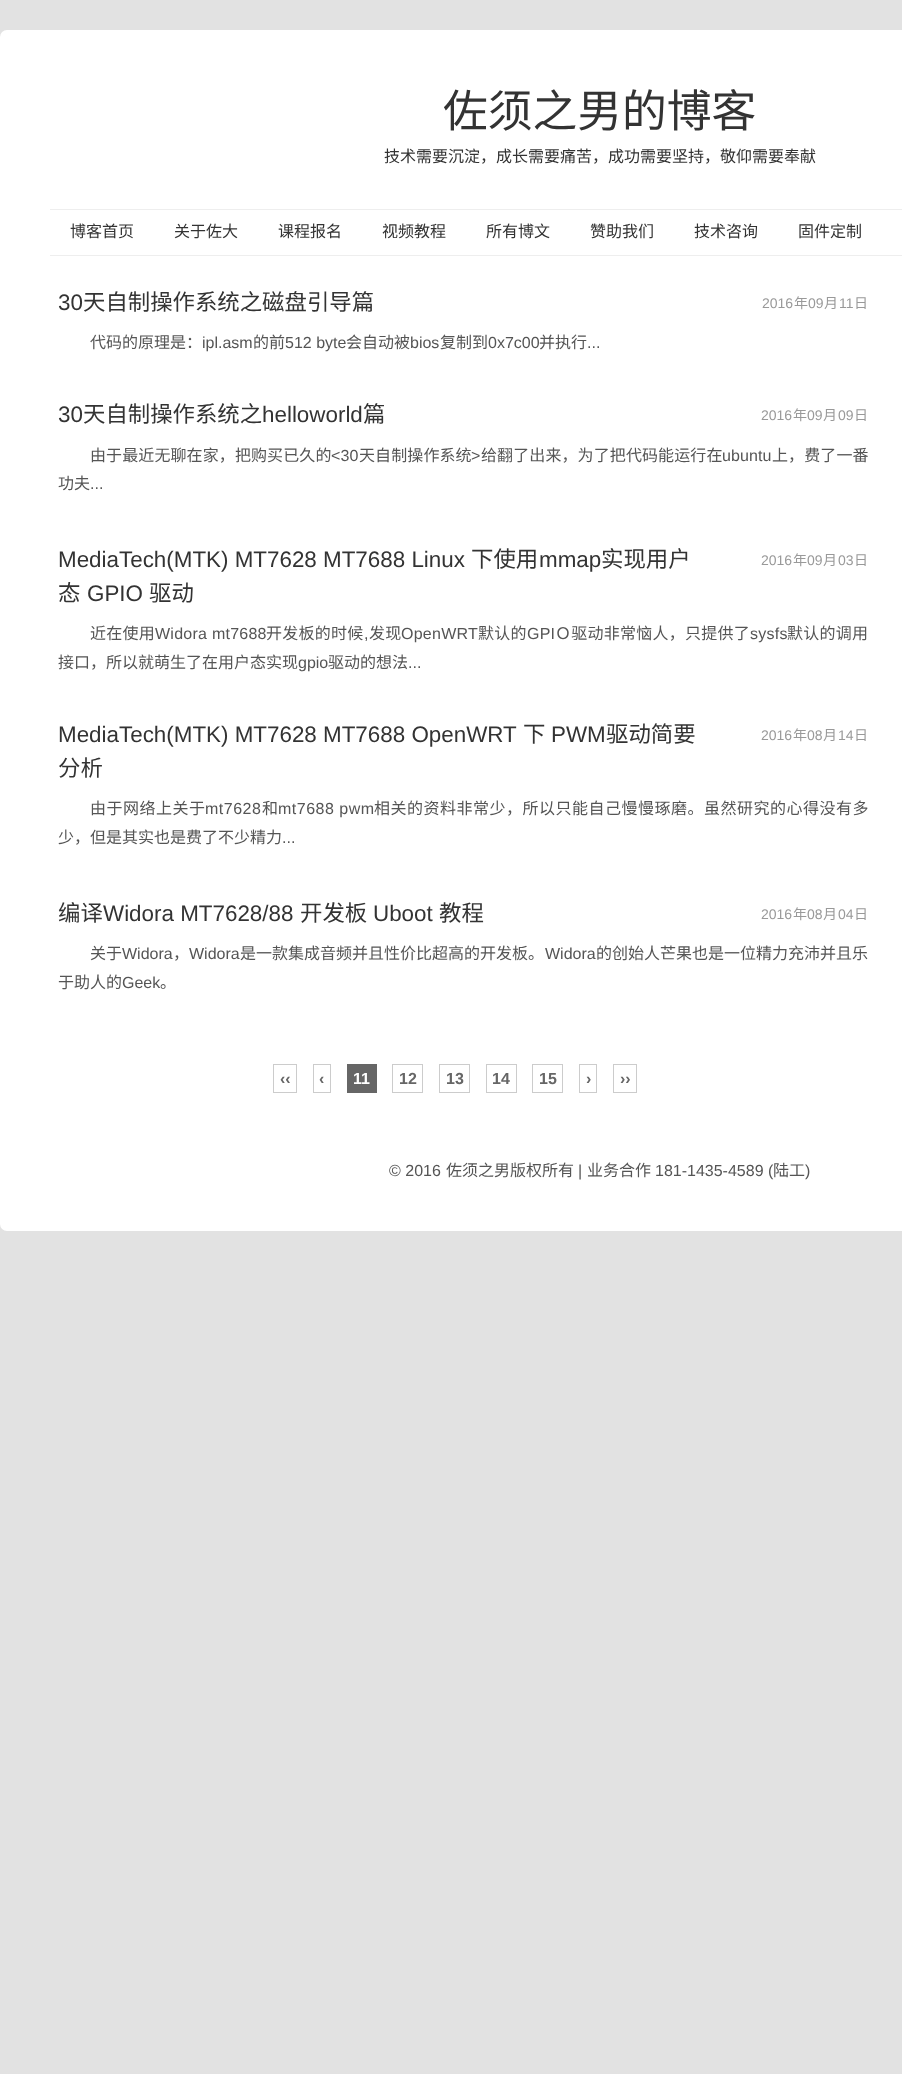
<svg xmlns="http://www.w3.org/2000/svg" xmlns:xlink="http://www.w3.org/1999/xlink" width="902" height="2074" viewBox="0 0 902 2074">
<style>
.cls-1{font:44.75px Noto Sans CJK SC;fill:#333333}
.cls-2{font:16px Noto Sans CJK SC;fill:#333333}
.cls-3{font:22.4px Liberation Sans;fill:#333333}
.cls-4{font:22.4px Noto Sans CJK SC;fill:#333333}
.cls-5{font:14px Liberation Sans;fill:#999999}
.cls-6{font:14px Noto Sans CJK SC;fill:#999999}
.cls-7{font:16px Noto Sans CJK SC;fill:#555555}
.cls-8{font:16px Liberation Sans;fill:#555555}
.cls-9{font:16px Noto Sans CJK SC;letter-spacing:0.1px;fill:#555555}
.cls-10{font:16px Liberation Sans;letter-spacing:0.1px;fill:#555555}
.cls-11{font:16px Noto Sans CJK SC;letter-spacing:0.25px;fill:#555555}
.cls-12{font:16px Liberation Sans;letter-spacing:0.25px;fill:#555555}
.cls-13{font:16px Noto Sans CJK SC;letter-spacing:0.5px;fill:#555555}
.cls-14{font:16px Liberation Sans;letter-spacing:0.5px;fill:#555555}
.cls-15{font:bold 16px Liberation Sans;fill:#666666}
.cls-16{font:bold 16px Liberation Sans;fill:#ffffff}
</style>
<rect width="100%" height="100%" fill="#e2e2e2"/>
<rect fill="#ffffff" x="0" y="30" width="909" height="1201" rx="7"/>
<rect fill="#eeeeee" x="50" y="209" width="852" height="1"/>
<rect fill="#eeeeee" x="50" y="255" width="852" height="1"/>
<rect fill="none" stroke="#cccccc" x="273.5" y="1064.5" width="23" height="28"/>
<rect fill="none" stroke="#cccccc" x="313.5" y="1064.5" width="17" height="28"/>
<rect fill="#666666" x="347" y="1064" width="30" height="29"/>
<rect fill="none" stroke="#cccccc" x="392.5" y="1064.5" width="30" height="28"/>
<rect fill="none" stroke="#cccccc" x="439.5" y="1064.5" width="30" height="28"/>
<rect fill="none" stroke="#cccccc" x="486.5" y="1064.5" width="30" height="28"/>
<rect fill="none" stroke="#cccccc" x="532.5" y="1064.5" width="30" height="28"/>
<rect fill="none" stroke="#cccccc" x="579.5" y="1064.5" width="17" height="28"/>
<rect fill="none" stroke="#cccccc" x="613.5" y="1064.5" width="23" height="28"/>
<text class="cls-1" x="443" y="127">佐须之男的博客</text>
<text class="cls-2" x="384" y="162">技术需要沉淀，成长需要痛苦，成功需要坚持，敬仰需要奉献</text>
<text class="cls-2" x="70" y="237">博客首页</text>
<text class="cls-2" x="174" y="237">关于佐大</text>
<text class="cls-2" x="278" y="237">课程报名</text>
<text class="cls-2" x="382" y="237">视频教程</text>
<text class="cls-2" x="486" y="237">所有博文</text>
<text class="cls-2" x="590" y="237">赞助我们</text>
<text class="cls-2" x="694" y="237">技术咨询</text>
<text class="cls-2" x="798" y="237">固件定制</text>
<text class="cls-3" x="58" y="310">30</text>
<text class="cls-4" x="83" y="310">天自制操作系统之磁盘引导篇</text>
<text class="cls-5" x="762" y="308">2016</text>
<text class="cls-6" x="794" y="308">年</text>
<text class="cls-5" x="808" y="308">09</text>
<text class="cls-6" x="824" y="308">月</text>
<text class="cls-5" x="839" y="308">11</text>
<text class="cls-6" x="854" y="308">日</text>
<text class="cls-7" x="90" y="348">代码的原理是：</text>
<text class="cls-8" x="202" y="348">ipl.asm</text>
<text class="cls-7" x="253" y="348">的前</text>
<text class="cls-8" x="285" y="348">512 byte</text>
<text class="cls-7" x="346" y="348">会自动被</text>
<text class="cls-8" x="410" y="348">bios</text>
<text class="cls-7" x="440" y="348">复制到</text>
<text class="cls-8" x="488" y="348">0x7c00</text>
<text class="cls-7" x="539" y="348">并执行</text>
<text class="cls-8" x="587" y="348">...</text>
<text class="cls-3" x="58" y="422">30</text>
<text class="cls-4" x="83" y="422">天自制操作系统之</text>
<text class="cls-3" x="262" y="422">helloworld</text>
<text class="cls-4" x="363" y="422">篇</text>
<text class="cls-5" x="761" y="420">2016</text>
<text class="cls-6" x="793" y="420">年</text>
<text class="cls-5" x="807" y="420">09</text>
<text class="cls-6" x="823" y="420">月</text>
<text class="cls-5" x="838" y="420">09</text>
<text class="cls-6" x="854" y="420">日</text>
<text class="cls-9" x="90" y="461">由于最近无聊在家，把购买已久的</text>
<text class="cls-10" x="331" y="461">&lt;30</text>
<text class="cls-9" x="359" y="461">天自制操作系统</text>
<text class="cls-10" x="471" y="461">&gt;</text>
<text class="cls-9" x="481" y="461">给翻了出来，为了把代码能运行在</text>
<text class="cls-10" x="722" y="461">ubuntu</text>
<text class="cls-9" x="772" y="461">上，费了一番</text>
<text class="cls-7" x="58" y="489">功夫</text>
<text class="cls-8" x="90" y="489">...</text>
<text class="cls-3" x="58" y="567">MediaTech(MTK) MT7628 MT7688 Linux</text>
<text class="cls-4" x="471" y="567">下使用</text>
<text class="cls-3" x="539" y="567">mmap</text>
<text class="cls-4" x="601" y="567">实现用户</text>
<text class="cls-4" x="58" y="601">态</text>
<text class="cls-3" x="87" y="601">GPIO</text>
<text class="cls-4" x="149" y="601">驱动</text>
<text class="cls-5" x="761" y="565">2016</text>
<text class="cls-6" x="793" y="565">年</text>
<text class="cls-5" x="807" y="565">09</text>
<text class="cls-6" x="823" y="565">月</text>
<text class="cls-5" x="838" y="565">03</text>
<text class="cls-6" x="854" y="565">日</text>
<text class="cls-11" x="90" y="639">近在使用</text>
<text class="cls-12" x="155" y="639">Widora mt7688</text>
<text class="cls-11" x="266" y="639">开发板的时候</text>
<text class="cls-12" x="364" y="639">,</text>
<text class="cls-11" x="369" y="639">发现</text>
<text class="cls-12" x="401" y="639">OpenWRT</text>
<text class="cls-11" x="478" y="639">默认的</text>
<text class="cls-12" x="527" y="639">GPI</text>
<text class="cls-11" x="555" y="639">Ｏ驱动非常恼人，只提供了</text>
<text class="cls-12" x="750" y="639">sysfs</text>
<text class="cls-11" x="787" y="639">默认的调用</text>
<text class="cls-7" x="58" y="668">接口，所以就萌生了在用户态实现</text>
<text class="cls-8" x="298" y="668">gpio</text>
<text class="cls-7" x="328" y="668">驱动的想法</text>
<text class="cls-8" x="408" y="668">...</text>
<text class="cls-3" x="58" y="742">MediaTech(MTK) MT7628 MT7688 OpenWRT</text>
<text class="cls-4" x="523" y="742">下</text>
<text class="cls-3" x="551" y="742">PWM</text>
<text class="cls-4" x="606" y="742">驱动简要</text>
<text class="cls-4" x="58" y="776">分析</text>
<text class="cls-5" x="761" y="740">2016</text>
<text class="cls-6" x="793" y="740">年</text>
<text class="cls-5" x="807" y="740">08</text>
<text class="cls-6" x="823" y="740">月</text>
<text class="cls-5" x="838" y="740">14</text>
<text class="cls-6" x="854" y="740">日</text>
<text class="cls-13" x="90" y="814">由于网络上关于</text>
<text class="cls-14" x="205" y="814">mt7628</text>
<text class="cls-13" x="262" y="814">和</text>
<text class="cls-14" x="278" y="814">mt7688 pwm</text>
<text class="cls-13" x="374" y="814">相关的资料非常少，所以只能自己慢慢琢磨。虽然研究的心得没有多</text>
<text class="cls-7" x="58" y="843">少，但是其实也是费了不少精力</text>
<text class="cls-8" x="282" y="843">...</text>
<text class="cls-4" x="58" y="921">编译</text>
<text class="cls-3" x="103" y="921">Widora MT7628/88</text>
<text class="cls-4" x="300" y="921">开发板</text>
<text class="cls-3" x="373" y="921">Uboot</text>
<text class="cls-4" x="439" y="921">教程</text>
<text class="cls-5" x="761" y="919">2016</text>
<text class="cls-6" x="793" y="919">年</text>
<text class="cls-5" x="807" y="919">08</text>
<text class="cls-6" x="823" y="919">月</text>
<text class="cls-5" x="838" y="919">04</text>
<text class="cls-6" x="854" y="919">日</text>
<text class="cls-7" x="90" y="959">关于</text>
<text class="cls-8" x="122" y="959">Widora</text>
<text class="cls-7" x="173" y="959">，</text>
<text class="cls-8" x="189" y="959">Widora</text>
<text class="cls-7" x="240" y="959">是一款集成音频并且性价比超高的开发板。</text>
<text class="cls-8" x="545" y="959">Widora</text>
<text class="cls-7" x="596" y="959">的创始人芒果也是一位精力充沛并且乐</text>
<text class="cls-7" x="58" y="988">于助人的</text>
<text class="cls-8" x="122" y="988">Geek</text>
<text class="cls-7" x="160" y="988">。</text>
<text class="cls-15" x="280" y="1084">‹‹</text>
<text class="cls-15" x="319" y="1084">‹</text>
<text class="cls-16" x="353" y="1084">11</text>
<text class="cls-15" x="399" y="1084">12</text>
<text class="cls-15" x="446" y="1084">13</text>
<text class="cls-15" x="492" y="1084">14</text>
<text class="cls-15" x="539" y="1084">15</text>
<text class="cls-15" x="586" y="1084">›</text>
<text class="cls-15" x="620" y="1084">››</text>
<text class="cls-8" x="389" y="1176">© 2016</text>
<text class="cls-7" x="446" y="1176">佐须之男版权所有</text>
<text class="cls-8" x="578" y="1176">|</text>
<text class="cls-7" x="587" y="1176">业务合作</text>
<text class="cls-8" x="655" y="1176">181-1435-4589 (</text>
<text class="cls-7" x="773" y="1176">陆工</text>
<text class="cls-8" x="805" y="1176">)</text>
</svg>
